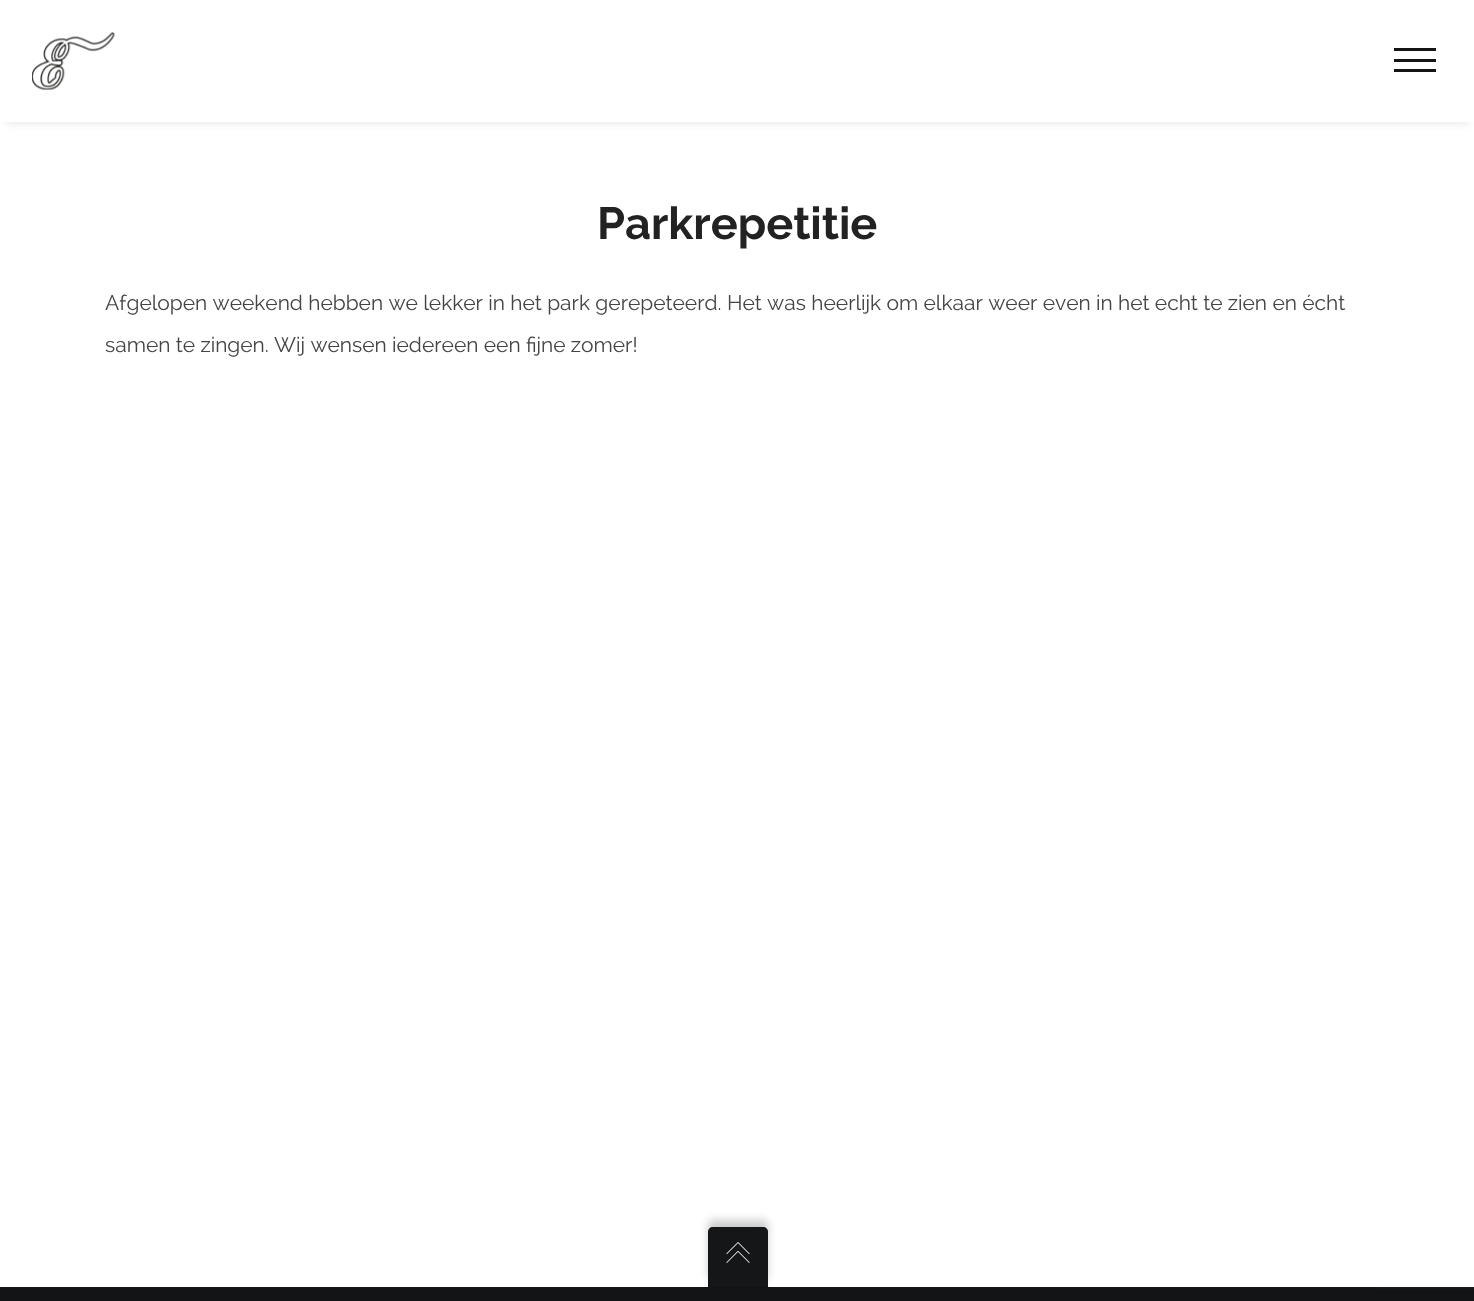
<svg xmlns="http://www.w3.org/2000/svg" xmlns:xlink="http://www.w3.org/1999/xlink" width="1474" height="1301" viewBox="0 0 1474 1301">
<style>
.cls-1{font:bold 45px Raleway;fill:#222222}
.cls-2{font:21px Raleway;fill:#444444}
</style>
<rect width="100%" height="100%" fill="#131416"/>
<rect fill="#808080" filter="blur(4px)" x="1370" y="1191" width="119" height="90" rx="3"/>
<rect fill="#ffffff" x="0" y="122" width="1474" height="1165"/>
<rect fill="#000000" fill-opacity="0.1" filter="blur(4px)" x="6" y="14" width="1463" height="109"/>
<rect fill="#ffffff" x="0" y="0" width="1474" height="122"/>
<image xlink:href="image0.png" x="32" y="32" width="83" height="58"/>
<rect fill="#151515" x="1394" y="59" width="42" height="3"/>
<rect fill="#151515" x="1394" y="48" width="42" height="3"/>
<rect fill="#151515" x="1394" y="69" width="42" height="3"/>
<rect fill="#000000" fill-opacity="0.2" filter="blur(4px)" x="708" y="1220" width="60" height="60" rx="5"/>
<path fill="#141618" d="M713 1227H763C766 1227 768 1229 768 1232V1287H708V1232C708 1229 710 1227 713 1227Z"/>
<image xlink:href="image1.png" x="726" y="1242" width="24" height="21"/>
<text class="cls-1" x="597" y="239">Parkrepetitie</text>
<text class="cls-2" x="105" y="310">Afgelopen weekend hebben we lekker in het park gerepeteerd. Het was heerlijk om elkaar weer even in het echt te zien en écht</text>
<text class="cls-2" x="105" y="352">samen te zingen. Wij wensen iedereen een fijne zomer!</text>
</svg>
